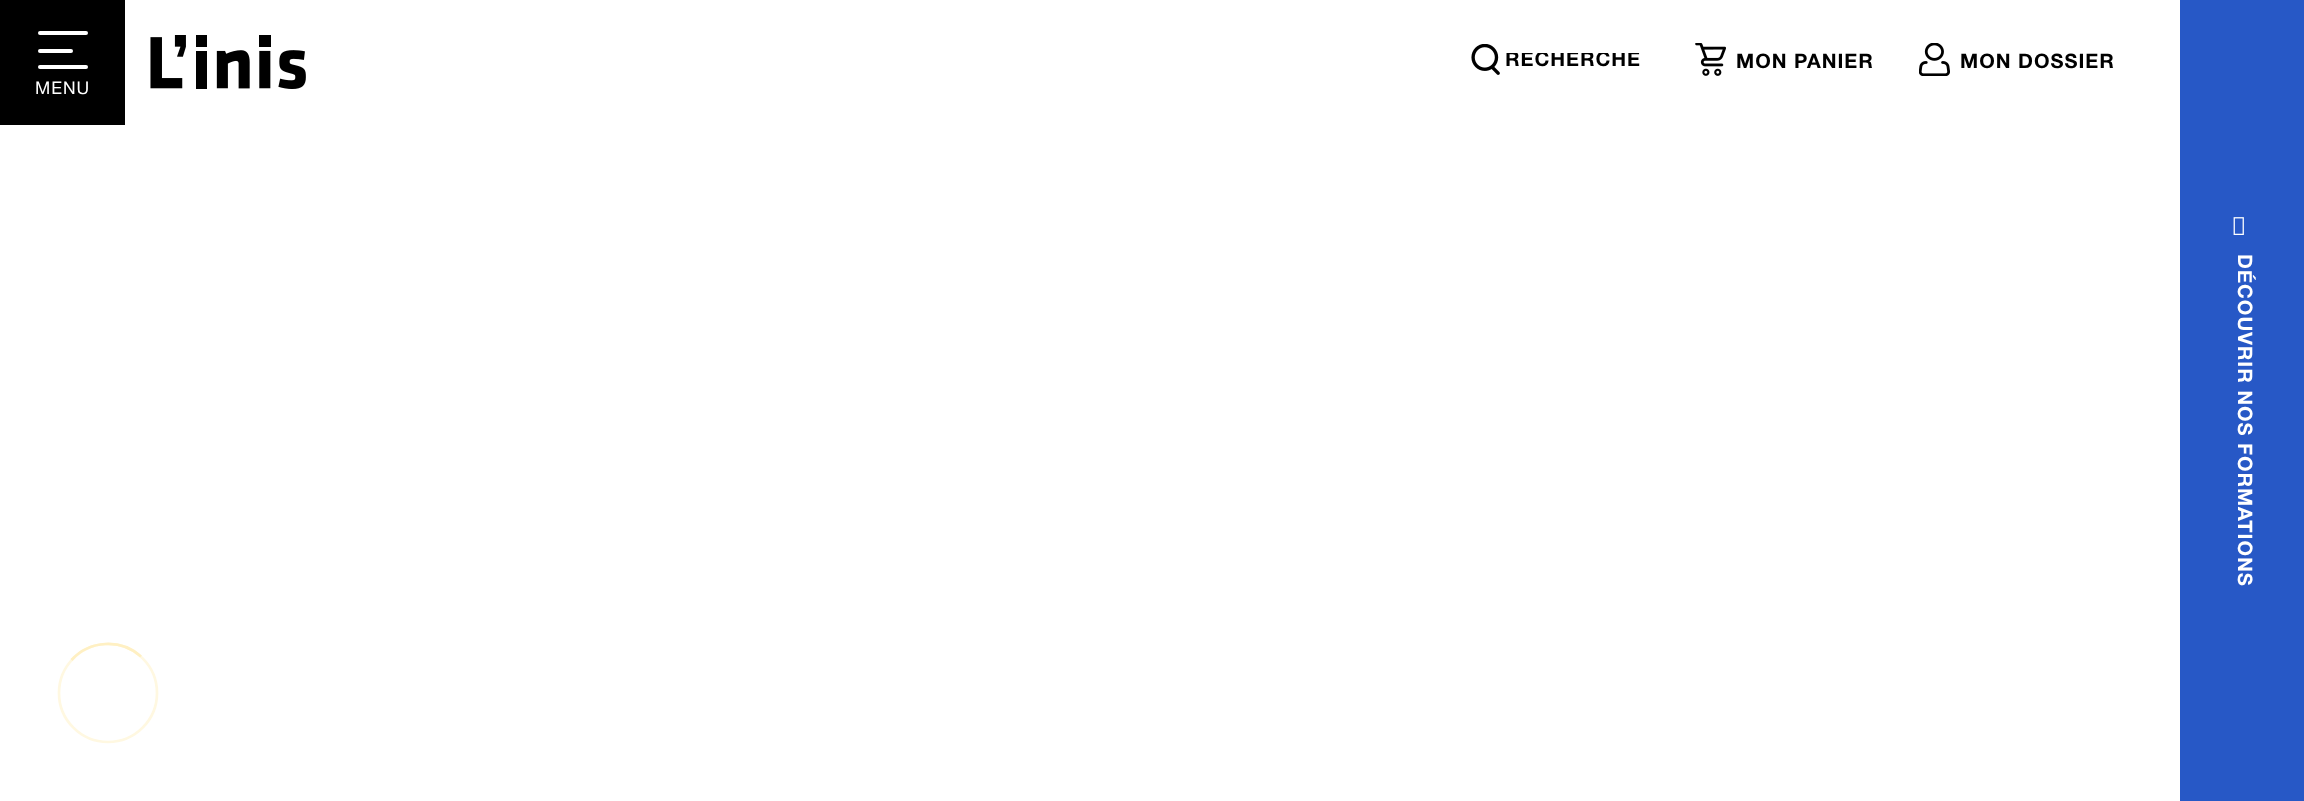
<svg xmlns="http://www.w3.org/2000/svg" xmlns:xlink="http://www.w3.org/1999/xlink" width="2304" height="801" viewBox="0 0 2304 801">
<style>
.cls-1{font:bold 20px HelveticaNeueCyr;letter-spacing:1px;fill:#000000}
.cls-2{font:17.5px HelveticaNeueCyr;letter-spacing:1px;fill:#ffffff}
.cls-3{font:bold 20px HelveticaNeueCyr;letter-spacing:1px;fill:#ffffff}
.cls-4{font:bold 20px Liberation Sans;letter-spacing:1px;fill:#ffffff}
</style>
<defs>
<clipPath id="clip1"><rect x="1505" y="53" width="136" height="18"/></clipPath>
</defs>
<rect width="100%" height="100%" fill="#ffffff"/>
<image xlink:href="image0.png" x="150" y="35" width="156" height="54"/>
<image xlink:href="image1.png" x="1471" y="44" width="29" height="31"/>
<image xlink:href="image2.png" x="1695" y="43" width="31" height="33"/>
<image xlink:href="image3.png" x="1919" y="43" width="31" height="33"/>
<rect fill="#000000" x="0" y="0" width="125" height="125"/>
<rect fill="#ffffff" x="38" y="31" width="50" height="4" rx="2"/>
<rect fill="#ffffff" x="38" y="49" width="35" height="4" rx="2"/>
<rect fill="#ffffff" x="38" y="65" width="50" height="4" rx="2"/>
<circle fill="none" stroke="#fff8e1" stroke-width="2.7" cx="108" cy="693" r="49"/>
<path fill="none" stroke="#fff0c3" stroke-width="2.7" d="M141 656.5C121 638.5 89.5 640 71.5 660"/>
<rect fill="#2758c6" x="2180" y="0" width="124" height="801"/>
<image xlink:href="image4.png" x="2233" y="217" width="11" height="18"/>
<g clip-path="url(#clip1)">
<text class="cls-1" x="1505" y="66">RECHERCHE</text>
</g>
<text class="cls-1" x="1736" y="68">MON PANIER</text>
<text class="cls-1" x="1960" y="68">MON DOSSIER</text>
<text class="cls-2" x="35" y="94">MENU</text>
<text class="cls-3" x="2238" y="254" transform="rotate(90 2238 254)">D</text>
<text class="cls-4" x="2238" y="270" transform="rotate(90 2238 270)">É</text>
<text class="cls-3" x="2238" y="284" transform="rotate(90 2238 284)">COUVRIR NOS FORMATIONS</text>
</svg>
